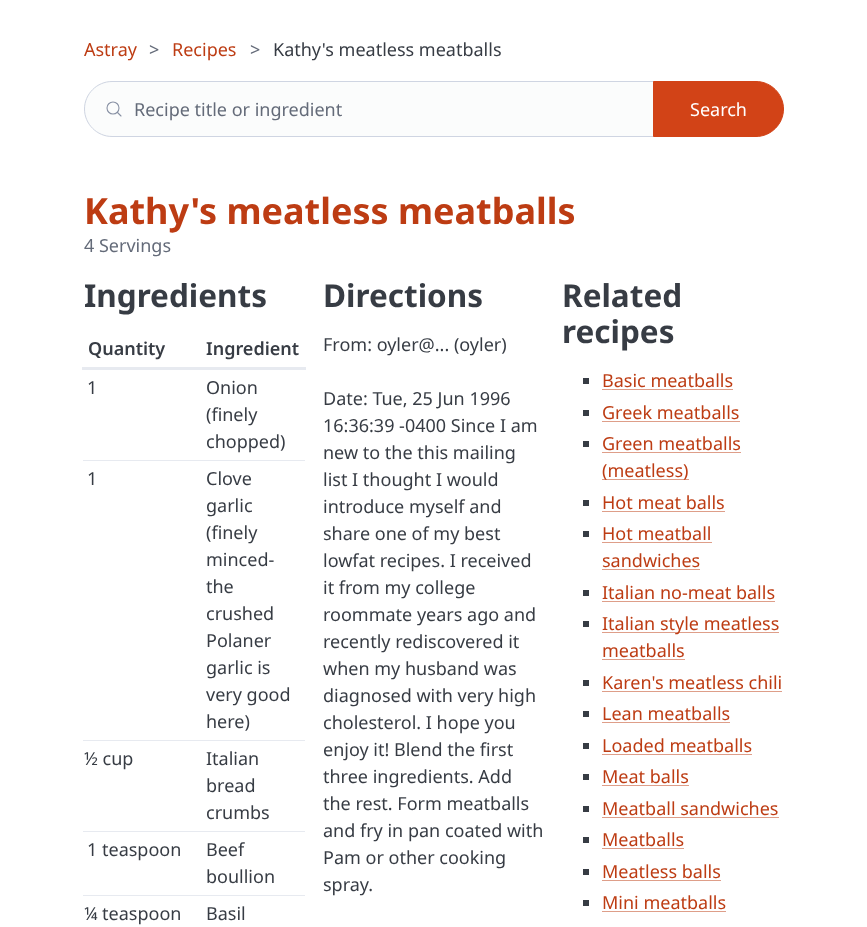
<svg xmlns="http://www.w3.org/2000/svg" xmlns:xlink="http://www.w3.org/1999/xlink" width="867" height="927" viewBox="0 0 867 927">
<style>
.cls-1{font:18px Noto Sans;fill:#bd3c13}
.cls-2{font:18px Noto Sans;fill:#646b79}
.cls-3{font:18px Noto Sans;fill:#373c44}
.cls-4{font:18px Noto Sans;fill:#ffffff}
.cls-5{font:bold 36px Noto Sans;fill:#bd3c13}
.cls-6{font:bold 31.5px Noto Sans;fill:#373c44}
.cls-7{font:600 18px Noto Sans;fill:#373c44}
</style>
<rect width="100%" height="100%" fill="#ffffff"/>
<path fill="#fbfcfc" d="M112 81H654V137H112C96.5 137 84 124.5 84 109C84 93.5 96.5 81 112 81Z"/>
<circle fill="none" stroke="#8891a4" stroke-width="1.1" cx="113" cy="108" r="6"/>
<path fill="none" stroke="#8891a4" stroke-width="1.1" stroke-linecap="round" stroke-linejoin="round" d="M121 116L117.5 112.5"/>
<path fill="none" stroke="#cfd5e2" d="M112 81.5H653.5V136.5H112C97 136.5 84.5 124 84.5 109C84.5 94 97 81.5 112 81.5Z"/>
<path fill="#d24317" stroke="#d24317" d="M653.5 81.5H756C771 81.5 783.5 94 783.5 109C783.5 124 771 136.5 756 136.5H653.5Z"/>
<rect fill="#e7eaf0" x="82" y="367" width="224" height="3"/>
<rect fill="#e7eaf0" x="83" y="460" width="222" height="1"/>
<rect fill="#e7eaf0" x="83" y="740" width="222" height="1"/>
<rect fill="#e7eaf0" x="83" y="831" width="222" height="1"/>
<rect fill="#e7eaf0" x="83" y="895" width="222" height="1"/>
<rect fill="#373c44" x="583" y="378" width="6" height="6"/>
<rect fill="#de9e89" x="602" y="389" width="131" height="1"/>
<rect fill="#373c44" x="583" y="410" width="6" height="6"/>
<rect fill="#de9e89" x="602" y="421" width="138" height="1"/>
<rect fill="#373c44" x="583" y="441" width="6" height="6"/>
<rect fill="#de9e89" x="602" y="452" width="139" height="1"/>
<rect fill="#de9e89" x="602" y="479" width="87" height="1"/>
<rect fill="#373c44" x="583" y="500" width="6" height="6"/>
<rect fill="#de9e89" x="602" y="511" width="123" height="1"/>
<rect fill="#373c44" x="583" y="531" width="6" height="6"/>
<rect fill="#de9e89" x="602" y="542" width="110" height="1"/>
<rect fill="#de9e89" x="602" y="569" width="98" height="1"/>
<rect fill="#373c44" x="583" y="590" width="6" height="6"/>
<rect fill="#de9e89" x="602" y="601" width="173" height="1"/>
<rect fill="#373c44" x="583" y="621" width="6" height="6"/>
<rect fill="#de9e89" x="602" y="632" width="177" height="1"/>
<rect fill="#de9e89" x="602" y="659" width="83" height="1"/>
<rect fill="#373c44" x="583" y="680" width="6" height="6"/>
<rect fill="#de9e89" x="602" y="691" width="180" height="1"/>
<rect fill="#373c44" x="583" y="711" width="6" height="6"/>
<rect fill="#de9e89" x="602" y="722" width="128" height="1"/>
<rect fill="#373c44" x="583" y="743" width="6" height="6"/>
<rect fill="#de9e89" x="602" y="754" width="150" height="1"/>
<rect fill="#373c44" x="583" y="774" width="6" height="6"/>
<rect fill="#de9e89" x="602" y="785" width="87" height="1"/>
<rect fill="#373c44" x="583" y="806" width="6" height="6"/>
<rect fill="#de9e89" x="602" y="817" width="177" height="1"/>
<rect fill="#373c44" x="583" y="837" width="6" height="6"/>
<rect fill="#de9e89" x="602" y="848" width="82" height="1"/>
<rect fill="#373c44" x="583" y="869" width="6" height="6"/>
<rect fill="#de9e89" x="602" y="880" width="119" height="1"/>
<rect fill="#373c44" x="583" y="900" width="6" height="6"/>
<rect fill="#de9e89" x="602" y="911" width="124" height="1"/>
<text class="cls-1" x="84" y="56">Astray</text>
<text class="cls-2" x="149" y="56">&gt;</text>
<text class="cls-1" x="172" y="56">Recipes</text>
<text class="cls-2" x="250" y="56">&gt;</text>
<text class="cls-3" x="273" y="56">Kathy's meatless meatballs</text>
<text class="cls-2" x="134" y="116">Recipe title or ingredient</text>
<text class="cls-4" x="690" y="116">Search</text>
<text class="cls-5" x="84" y="224">Kathy's meatless meatballs</text>
<text class="cls-2" x="84" y="252">4 Servings</text>
<text class="cls-6" x="84" y="307">Ingredients</text>
<text class="cls-7" x="88" y="355">Quantity</text>
<text class="cls-7" x="206" y="355">Ingredient</text>
<text class="cls-3" x="87" y="394">1</text>
<text class="cls-3"><tspan x="206" y="394">Onion</tspan><tspan x="206" y="421">(finely</tspan><tspan x="206" y="448">chopped)</tspan></text>
<text class="cls-3" x="87" y="485">1</text>
<text class="cls-3"><tspan x="206" y="485">Clove</tspan><tspan x="206" y="512">garlic</tspan><tspan x="206" y="539">(finely</tspan><tspan x="206" y="566">minced-</tspan><tspan x="206" y="593">the</tspan><tspan x="206" y="620">crushed</tspan><tspan x="206" y="647">Polaner</tspan><tspan x="206" y="674">garlic is</tspan><tspan x="206" y="701">very good</tspan><tspan x="206" y="728">here)</tspan></text>
<text class="cls-3" x="84" y="765">½ cup</text>
<text class="cls-3"><tspan x="206" y="765">Italian</tspan><tspan x="206" y="792">bread</tspan><tspan x="206" y="819">crumbs</tspan></text>
<text class="cls-3" x="87" y="856">1 teaspoon</text>
<text class="cls-3"><tspan x="206" y="856">Beef</tspan><tspan x="206" y="883">boullion</tspan></text>
<text class="cls-3" x="84" y="920">¼ teaspoon</text>
<text class="cls-3" x="206" y="920">Basil</text>
<text class="cls-6" x="323" y="307">Directions</text>
<text class="cls-3" x="323" y="351">From: oyler@... (oyler)</text>
<text class="cls-3"><tspan x="323" y="405">Date: Tue, 25 Jun 1996</tspan><tspan x="323" y="432">16:36:39 -0400 Since I am</tspan><tspan x="323" y="459">new to the this mailing</tspan><tspan x="323" y="486">list I thought I would</tspan><tspan x="323" y="513">introduce myself and</tspan><tspan x="323" y="540">share one of my best</tspan><tspan x="323" y="567">lowfat recipes. I received</tspan><tspan x="323" y="594">it from my college</tspan><tspan x="323" y="621">roommate years ago and</tspan><tspan x="323" y="648">recently rediscovered it</tspan><tspan x="323" y="675">when my husband was</tspan><tspan x="323" y="702">diagnosed with very high</tspan><tspan x="323" y="729">cholesterol. I hope you</tspan><tspan x="323" y="756">enjoy it! Blend the first</tspan><tspan x="323" y="783">three ingredients. Add</tspan><tspan x="323" y="810">the rest. Form meatballs</tspan><tspan x="323" y="837">and fry in pan coated with</tspan><tspan x="323" y="864">Pam or other cooking</tspan><tspan x="323" y="891">spray.</tspan></text>
<text class="cls-6"><tspan x="562" y="307">Related</tspan><tspan x="562" y="343">recipes</tspan></text>
<text class="cls-1"><tspan x="602" y="387">Basic meatballs</tspan><tspan x="602" y="419">Greek meatballs</tspan><tspan x="602" y="450">Green meatballs</tspan><tspan x="602" y="477">(meatless)</tspan><tspan x="602" y="509">Hot meat balls</tspan><tspan x="602" y="540">Hot meatball</tspan><tspan x="602" y="567">sandwiches</tspan><tspan x="602" y="599">Italian no-meat balls</tspan><tspan x="602" y="630">Italian style meatless</tspan><tspan x="602" y="657">meatballs</tspan><tspan x="602" y="689">Karen's meatless chili</tspan><tspan x="602" y="720">Lean meatballs</tspan><tspan x="602" y="752">Loaded meatballs</tspan><tspan x="602" y="783">Meat balls</tspan><tspan x="602" y="815">Meatball sandwiches</tspan><tspan x="602" y="846">Meatballs</tspan><tspan x="602" y="878">Meatless balls</tspan><tspan x="602" y="909">Mini meatballs</tspan></text>
</svg>
